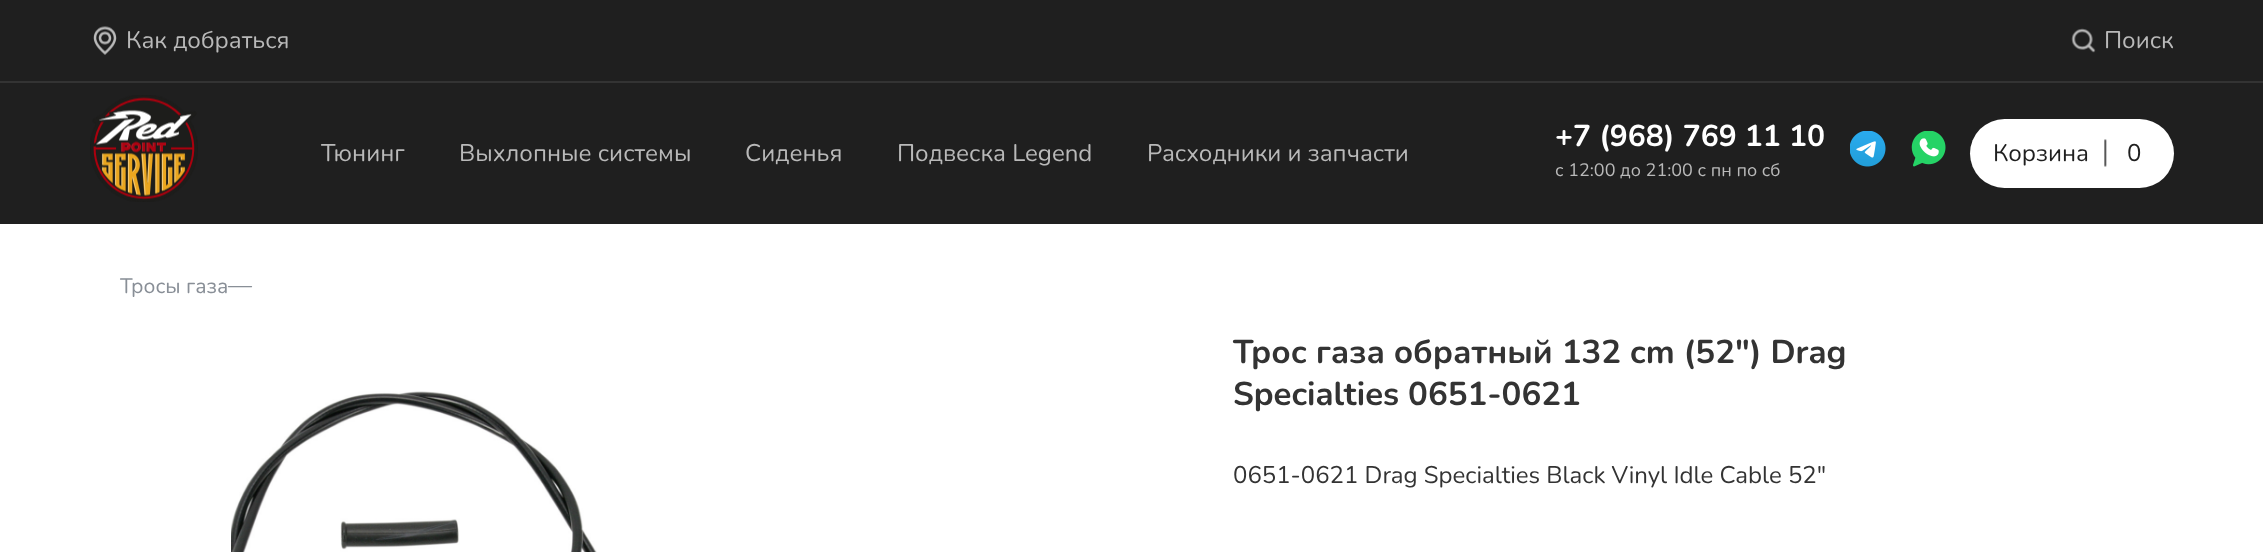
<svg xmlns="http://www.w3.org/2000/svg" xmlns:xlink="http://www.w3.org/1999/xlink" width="2263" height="552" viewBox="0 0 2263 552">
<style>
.cls-1{font:24px Nunito;fill:#b9b9b9}
.cls-2{font:bold 30px Nunito;fill:#ffffff}
.cls-3{font:18px Nunito;fill:#b9b9b9}
.cls-4{font:24px Nunito;fill:#1f1f1f}
.cls-5{font:21px Nunito;fill:#898f97}
.cls-6{font:24px Nunito;fill:#898f97}
.cls-7{font:bold 33px Nunito;fill:#333333}
.cls-8{font:24px Nunito;fill:#333333}
</style>
<rect width="100%" height="100%" fill="#ffffff"/>
<rect fill="#1f1f1f" x="0" y="0" width="2263" height="224"/>
<rect fill="#333333" x="0" y="81" width="2263" height="2"/>
<image xlink:href="image0.png" x="93" y="26" width="24" height="29"/>
<image xlink:href="image1.png" x="2071" y="28" width="25" height="25"/>
<image xlink:href="image2.png" x="90" y="95" width="108" height="107"/>
<image xlink:href="image3.png" x="1850" y="131" width="36" height="36"/>
<image xlink:href="image4.png" x="1911" y="131" width="35" height="36"/>
<rect fill="#ffffff" x="1970" y="119" width="204" height="69" rx="34.5"/>
<image xlink:href="image5.png" x="2104" y="139" width="3" height="28"/>
<image xlink:href="image6.png" x="231" y="391" width="366" height="161"/>
<text class="cls-1" x="126" y="48">Как добраться</text>
<text class="cls-1" x="2104" y="48">Поиск</text>
<text class="cls-1" x="321" y="161">Тюнинг</text>
<text class="cls-1" x="459" y="161">Выхлопные системы</text>
<text class="cls-1" x="745" y="161">Сиденья</text>
<text class="cls-1" x="897" y="161">Подвеска Legend</text>
<text class="cls-1" x="1147" y="161">Расходники и запчасти</text>
<text class="cls-2" x="1555" y="146">+7 (968) 769 11 10</text>
<text class="cls-3" x="1555" y="176">с 12:00 до 21:00 с пн по сб</text>
<text class="cls-4" x="1993" y="161">Корзина</text>
<text class="cls-4" x="2127" y="161">0</text>
<text class="cls-5" x="120" y="293">Тросы газа</text>
<text class="cls-6" x="228" y="293">—</text>
<text class="cls-7"><tspan x="1233" y="363">Трос газа обратный 132 cm (52") Drag</tspan><tspan x="1233" y="405">Specialties 0651-0621</tspan></text>
<text class="cls-8" x="1233" y="483">0651-0621 Drag Specialties Black Vinyl Idle Cable 52"</text>
</svg>
